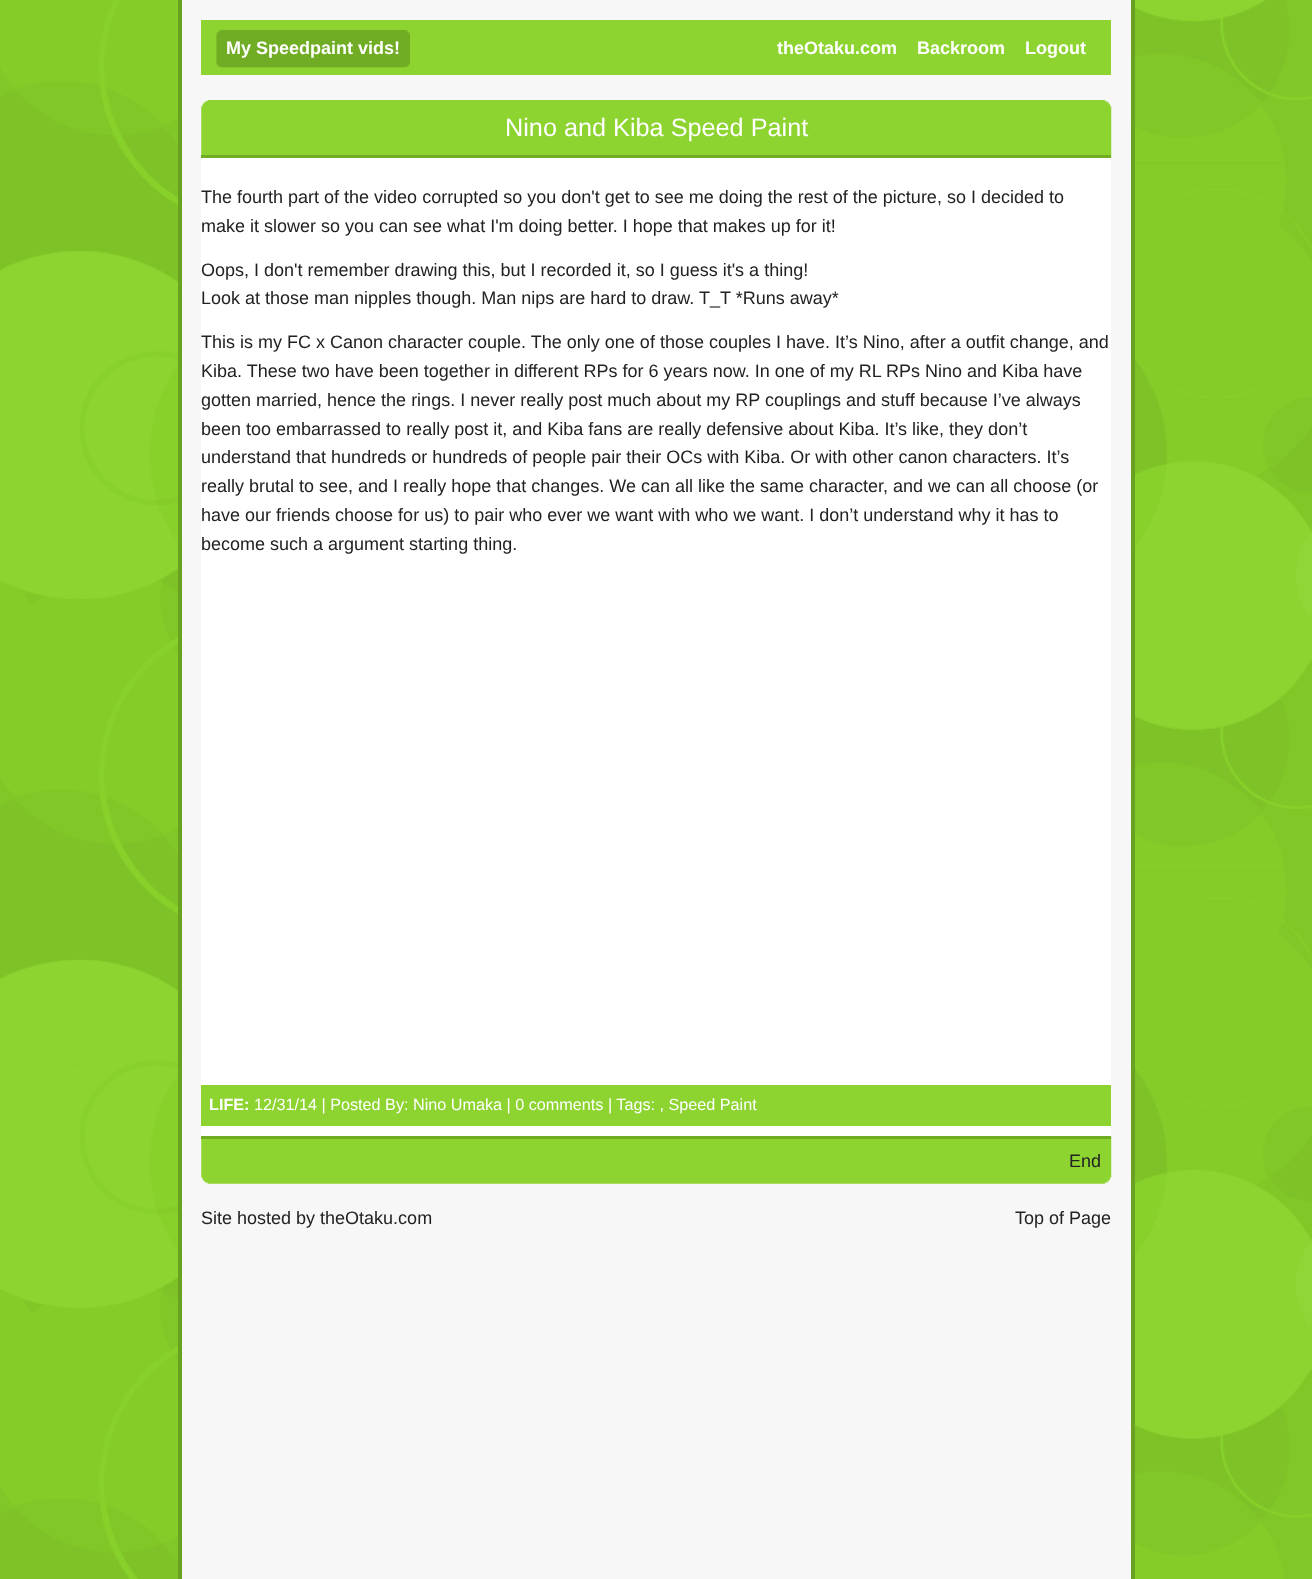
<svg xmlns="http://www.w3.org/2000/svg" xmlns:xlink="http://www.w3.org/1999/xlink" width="1312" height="1579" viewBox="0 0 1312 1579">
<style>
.cls-1{font:bold 18px Liberation Sans;fill:#ffffff}
.cls-2{font:25.25px Liberation Sans;fill:#ffffff}
.cls-3{font:18px Liberation Sans;fill:#222222}
.cls-4{font:bold 16.2px Liberation Sans;fill:#ffffff}
.cls-5{font:16.2px Liberation Sans;fill:#ffffff}
</style>
<rect width="100%" height="100%" fill="#ffffff"/>
<image xlink:href="image0.png" x="0" y="0" width="1312" height="1579"/>
<rect fill="#f7f7f7" x="182" y="0" width="949" height="1579"/>
<rect fill="#69a120" x="1131" y="0" width="4" height="1579"/>
<rect fill="#69a120" x="178" y="0" width="4" height="1579"/>
<rect fill="#8dd431" x="201" y="20" width="910" height="55"/>
<image xlink:href="image1.png" x="397" y="30" width="13" height="38"/>
<image xlink:href="image2.png" x="216" y="30" width="183" height="38"/>
<image xlink:href="image3.png" x="201" y="100" width="911" height="58"/>
<rect fill="#71ad24" x="201" y="155" width="910" height="3"/>
<rect fill="#ffffff" x="201" y="158" width="910" height="978"/>
<rect fill="#8dd431" x="201" y="1085" width="910" height="41"/>
<image xlink:href="image4.png" x="201" y="1136" width="911" height="48"/>
<rect fill="#71ad24" x="201" y="1136" width="910" height="3"/>
<text class="cls-1" x="226" y="54">My Speedpaint vids!</text>
<text class="cls-1" x="777" y="54">theOtaku.com</text>
<text class="cls-1" x="917" y="54">Backroom</text>
<text class="cls-1" x="1025" y="54">Logout</text>
<text class="cls-2" x="505" y="136">Nino and Kiba Speed Paint</text>
<text class="cls-3"><tspan x="201" y="203">The fourth part of the video corrupted so you don't get to see me doing the rest of the picture, so I decided to</tspan><tspan x="201" y="232">make it slower so you can see what I'm doing better. I hope that makes up for it!</tspan></text>
<text class="cls-3"><tspan x="201" y="276">Oops, I don't remember drawing this, but I recorded it, so I guess it's a thing!</tspan><tspan x="201" y="304">Look at those man nipples though. Man nips are hard to draw. T_T *Runs away*</tspan></text>
<text class="cls-3"><tspan x="201" y="348">This is my FC x Canon character couple. The only one of those couples I have. It’s Nino, after a outfit change, and</tspan><tspan x="201" y="377">Kiba. These two have been together in different RPs for 6 years now. In one of my RL RPs Nino and Kiba have</tspan><tspan x="201" y="406">gotten married, hence the rings. I never really post much about my RP couplings and stuff because I’ve always</tspan><tspan x="201" y="435">been too embarrassed to really post it, and Kiba fans are really defensive about Kiba. It’s like, they don’t</tspan><tspan x="201" y="463">understand that hundreds or hundreds of people pair their OCs with Kiba. Or with other canon characters. It’s</tspan><tspan x="201" y="492">really brutal to see, and I really hope that changes. We can all like the same character, and we can all choose (or</tspan><tspan x="201" y="521">have our friends choose for us) to pair who ever we want with who we want. I don’t understand why it has to</tspan><tspan x="201" y="550">become such a argument starting thing.</tspan></text>
<text class="cls-4" x="209" y="1110">LIFE:</text>
<text class="cls-5" x="254" y="1110">12/31/14 | Posted By: Nino Umaka | 0 comments | Tags: , Speed Paint</text>
<text class="cls-3" x="1069" y="1167">End</text>
<text class="cls-3" x="201" y="1224">Site hosted by theOtaku.com</text>
<text class="cls-3" x="1015" y="1224">Top of Page</text>
</svg>
